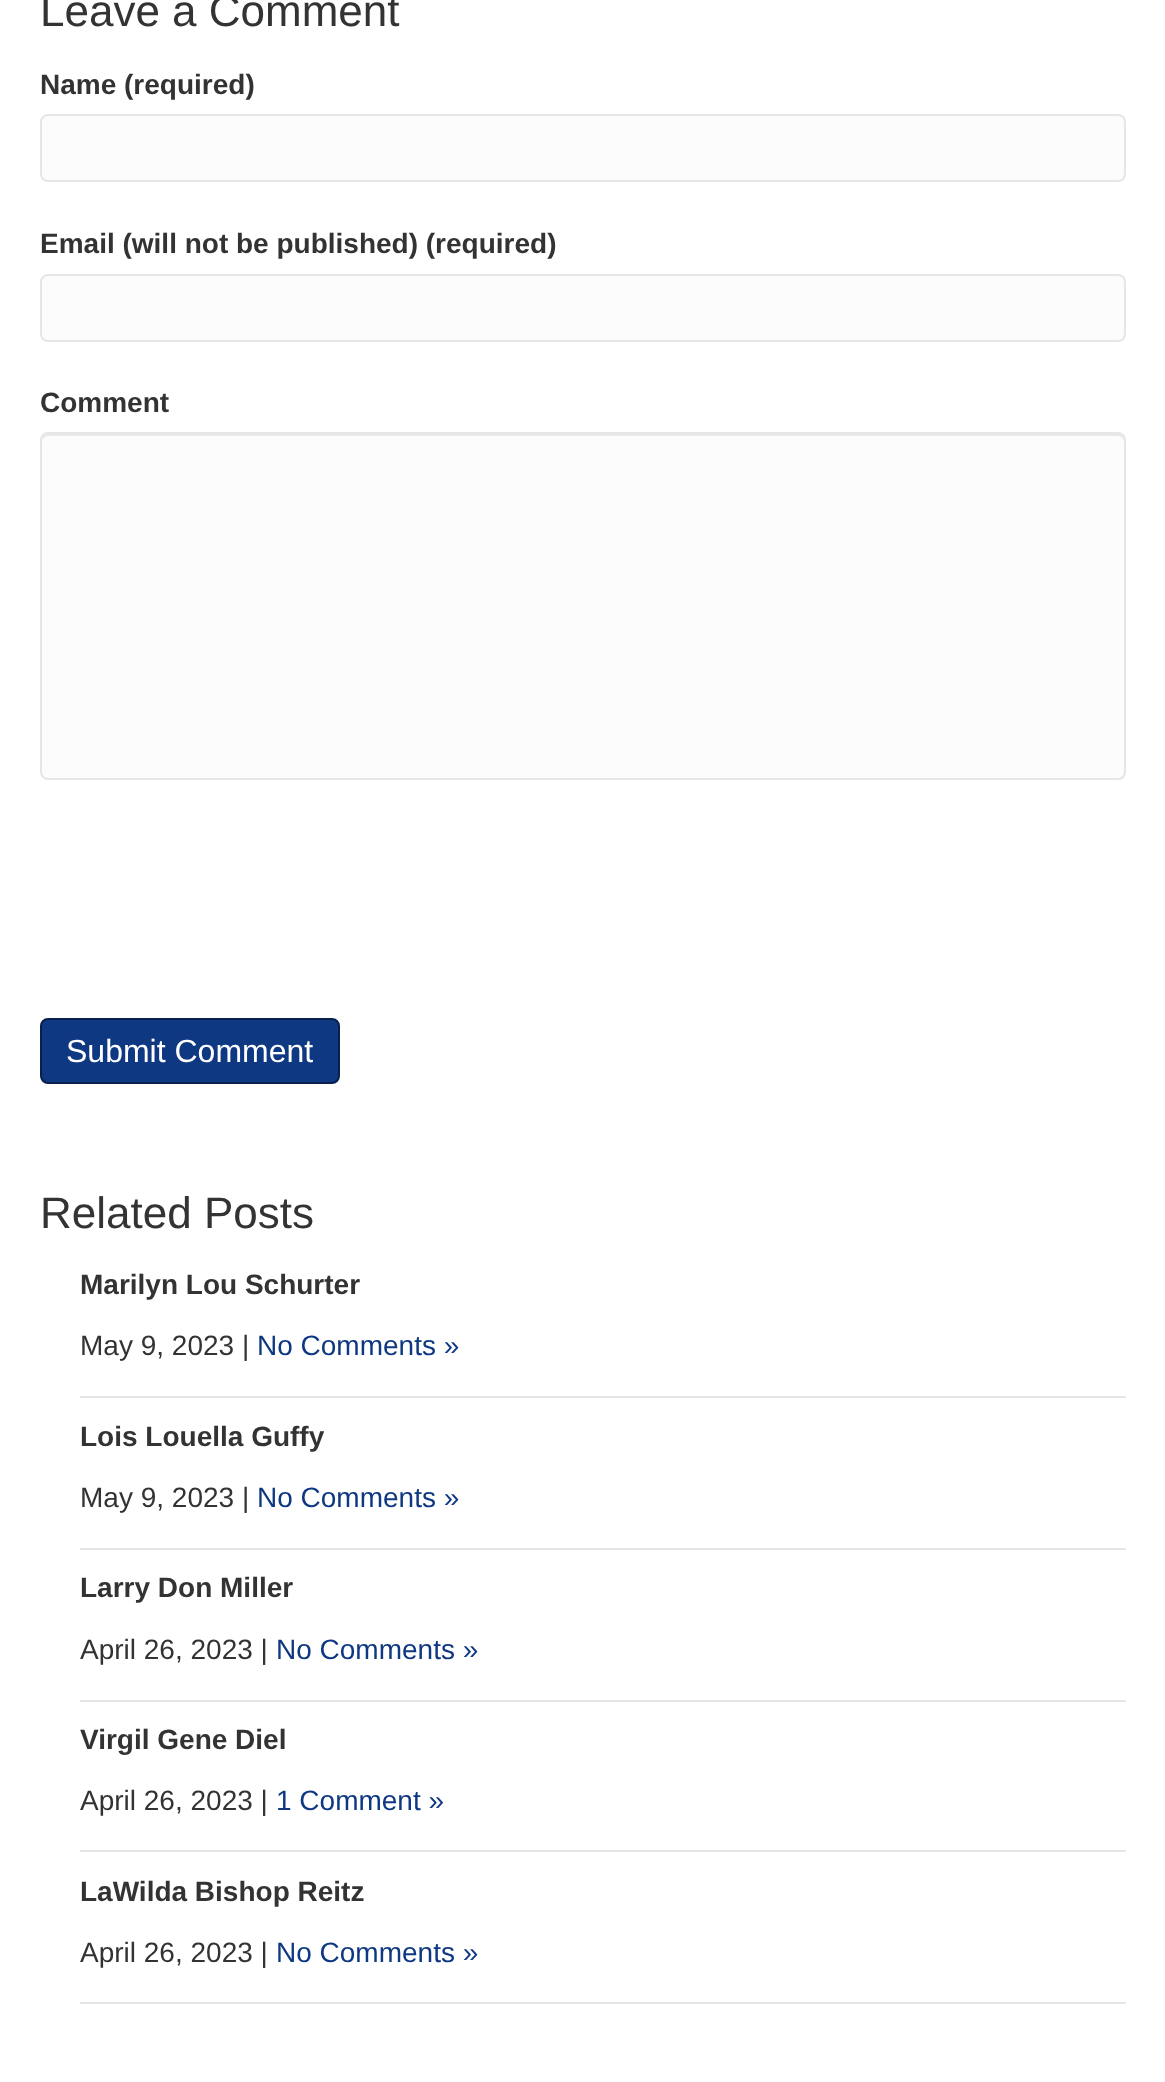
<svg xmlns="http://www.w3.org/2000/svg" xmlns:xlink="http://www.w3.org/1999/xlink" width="1165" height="2082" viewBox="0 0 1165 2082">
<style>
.cls-1{font:44px Liberation Sans;fill:#333333}
.cls-2{font:bold 28px Liberation Sans;fill:#333333}
.cls-3{font:32px Liberation Sans;fill:#ffffff}
.cls-4{font:28px Liberation Sans;fill:#333333}
.cls-5{font:28px Liberation Sans;fill:#0e3882}
</style>
<rect width="100%" height="100%" fill="#ffffff"/>
<rect fill="#fcfcfc" stroke="#e6e6e6" stroke-width="2" x="41" y="115" width="1084" height="66" rx="7"/>
<rect fill="#fcfcfc" stroke="#e6e6e6" stroke-width="2" x="41" y="275" width="1084" height="66" rx="7"/>
<rect fill="#fcfcfc" x="40" y="432" width="1086" height="348" rx="8"/>
<path fill="#e9e9e9" d="M48 436H1118C1121 436 1124 439 1124 442V440C1124 437 1121 434 1118 434H48C45 434 42 437 42 440V442C42 439 45 436 48 436Z"/>
<rect fill="none" stroke="#e6e6e6" stroke-width="2" x="41" y="433" width="1084" height="346" rx="7"/>
<rect fill="#0e3882" stroke="#08204b" stroke-width="2" x="41" y="1019" width="298" height="64" rx="7"/>
<rect fill="#e6e6e6" x="80" y="1396" width="1046" height="2"/>
<rect fill="#e6e6e6" x="80" y="1548" width="1046" height="2"/>
<rect fill="#e6e6e6" x="80" y="1700" width="1046" height="2"/>
<rect fill="#e6e6e6" x="80" y="1850" width="1046" height="2"/>
<rect fill="#e6e6e6" x="80" y="2002" width="1046" height="2"/>
<text class="cls-1" x="40" y="26">Leave a Comment</text>
<text class="cls-2" x="40" y="94">Name (required)</text>
<text class="cls-2" x="40" y="253">Email (will not be published) (required)</text>
<text class="cls-2" x="40" y="412">Comment</text>
<text class="cls-3" x="66" y="1062">Submit Comment</text>
<text class="cls-1" x="40" y="1228">Related Posts</text>
<text class="cls-2" x="80" y="1294">Marilyn Lou Schurter</text>
<text class="cls-4" x="80" y="1355">May 9, 2023 |</text>
<text class="cls-5" x="257" y="1355">No Comments »</text>
<text class="cls-2" x="80" y="1446">Lois Louella Guffy</text>
<text class="cls-4" x="80" y="1507">May 9, 2023 |</text>
<text class="cls-5" x="257" y="1507">No Comments »</text>
<text class="cls-2" x="80" y="1597">Larry Don Miller</text>
<text class="cls-4" x="80" y="1659">April 26, 2023 |</text>
<text class="cls-5" x="276" y="1659">No Comments »</text>
<text class="cls-2" x="80" y="1749">Virgil Gene Diel</text>
<text class="cls-4" x="80" y="1810">April 26, 2023 |</text>
<text class="cls-5" x="276" y="1810">1 Comment »</text>
<text class="cls-2" x="80" y="1901">LaWilda Bishop Reitz</text>
<text class="cls-4" x="80" y="1962">April 26, 2023 |</text>
<text class="cls-5" x="276" y="1962">No Comments »</text>
</svg>
